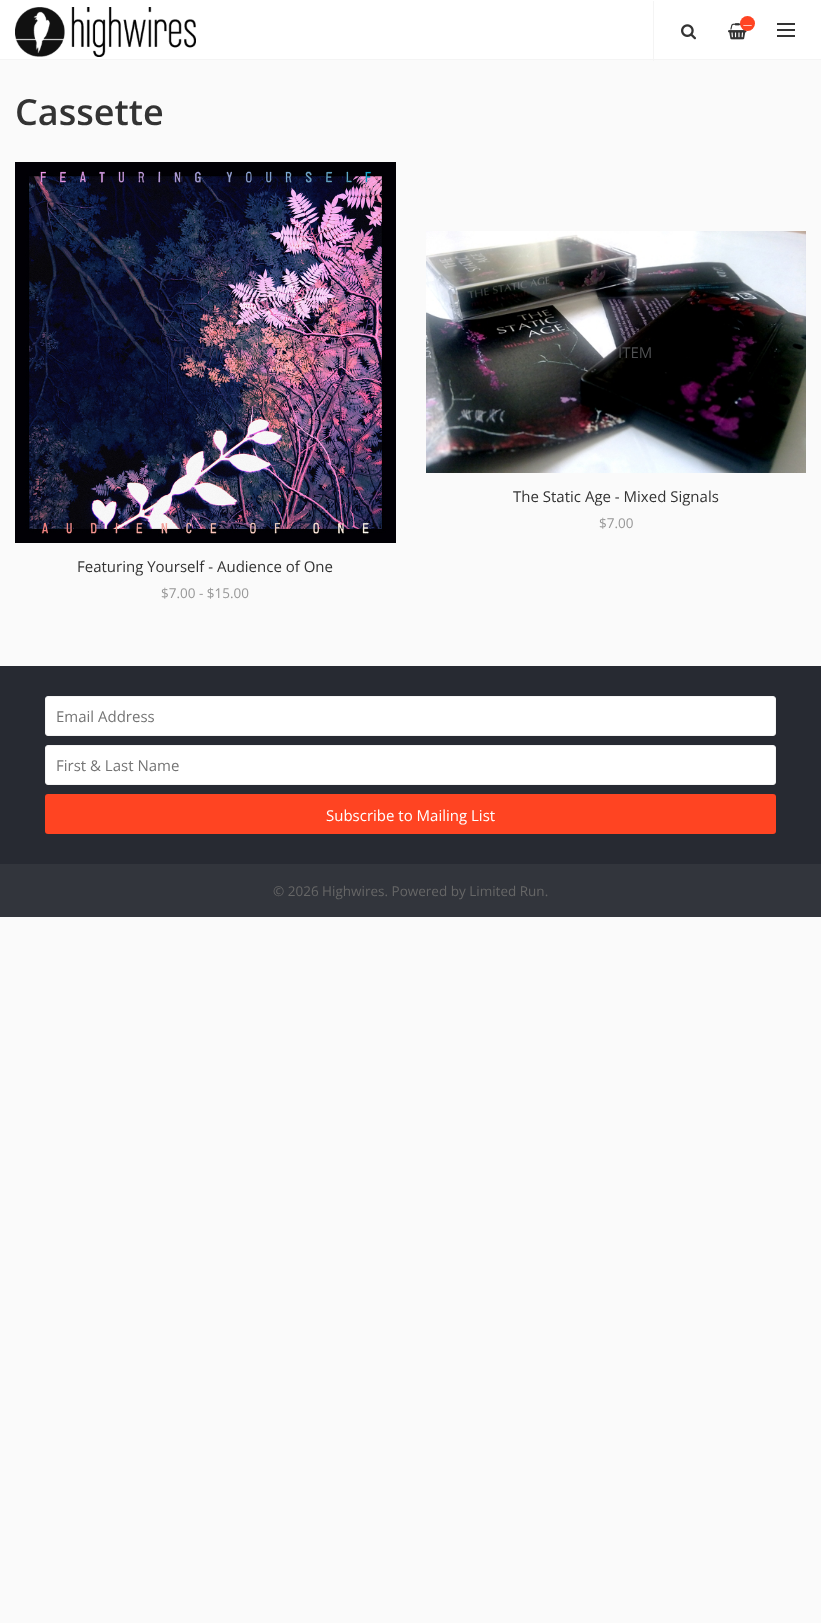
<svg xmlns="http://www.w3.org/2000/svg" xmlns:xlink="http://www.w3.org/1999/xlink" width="821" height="1623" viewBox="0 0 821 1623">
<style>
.cls-1{font:9px Open Sans;letter-spacing:1px;fill:#ffffff}
.cls-2{font:600 36px Open Sans;fill:#333333}
.cls-3{font:15px Open Sans;fill:#373051}
.cls-4{font:15px Open Sans;fill:#333333}
.cls-5{font:13.5px Open Sans;fill:#979797}
.cls-6{font:15px Open Sans;fill:#4f5052}
.cls-7{font:15px Open Sans;fill:#757575}
.cls-8{font:15px Open Sans;fill:#ffffff}
.cls-9{font:13.5px Open Sans;fill:#666666}
</style>
<rect width="100%" height="100%" fill="#fafafa"/>
<rect fill="#ffffff" x="0" y="0" width="821" height="59"/>
<rect fill="#f4f4f4" x="0" y="59" width="821" height="1"/>
<image xlink:href="image0.png" x="15" y="7" width="181" height="50"/>
<rect fill="#f4f4f4" x="653" y="1" width="1" height="60"/>
<image xlink:href="image1.png" x="681" y="24" width="15" height="16"/>
<image xlink:href="image2.png" x="728" y="23" width="19" height="17"/>
<circle fill="#ff4422" cx="747.5" cy="23.5" r="7.5"/>
<rect fill="#333333" x="777" y="29" width="18" height="2"/>
<rect fill="#333333" x="777" y="23" width="18" height="2"/>
<rect fill="#333333" x="777" y="35" width="18" height="2"/>
<image xlink:href="image3.png" x="15" y="162" width="381" height="381"/>
<image xlink:href="image4.png" x="426" y="231" width="380" height="242"/>
<rect fill="#272a32" x="0" y="666" width="821" height="198"/>
<rect fill="#ffffff" stroke="#f4f4f4" x="45.5" y="696.5" width="730" height="39" rx="2.5"/>
<rect fill="#ffffff" stroke="#f4f4f4" x="45.5" y="745.5" width="730" height="39" rx="2.5"/>
<rect fill="#ff4422" x="45" y="794" width="731" height="40" rx="3"/>
<rect fill="#32353c" x="0" y="864" width="821" height="53"/>
<text class="cls-1" x="743" y="28">—</text>
<text class="cls-2" x="15" y="125">Cassette</text>
<text class="cls-3" x="169" y="358">VIEW ITEM</text>
<text class="cls-4" x="77" y="572">Featuring Yourself - Audience of One</text>
<text class="cls-5" x="161" y="598">$7.00 - $15.00</text>
<text class="cls-6" x="618" y="358">ITEM</text>
<text class="cls-4" x="513" y="502">The Static Age - Mixed Signals</text>
<text class="cls-5" x="599" y="528">$7.00</text>
<text class="cls-7" x="56" y="722">Email Address</text>
<text class="cls-7" x="56" y="771">First &amp; Last Name</text>
<text class="cls-8" x="326" y="821">Subscribe to Mailing List</text>
<text class="cls-9" x="273" y="896">© 2026 Highwires. Powered by Limited Run.</text>
</svg>
